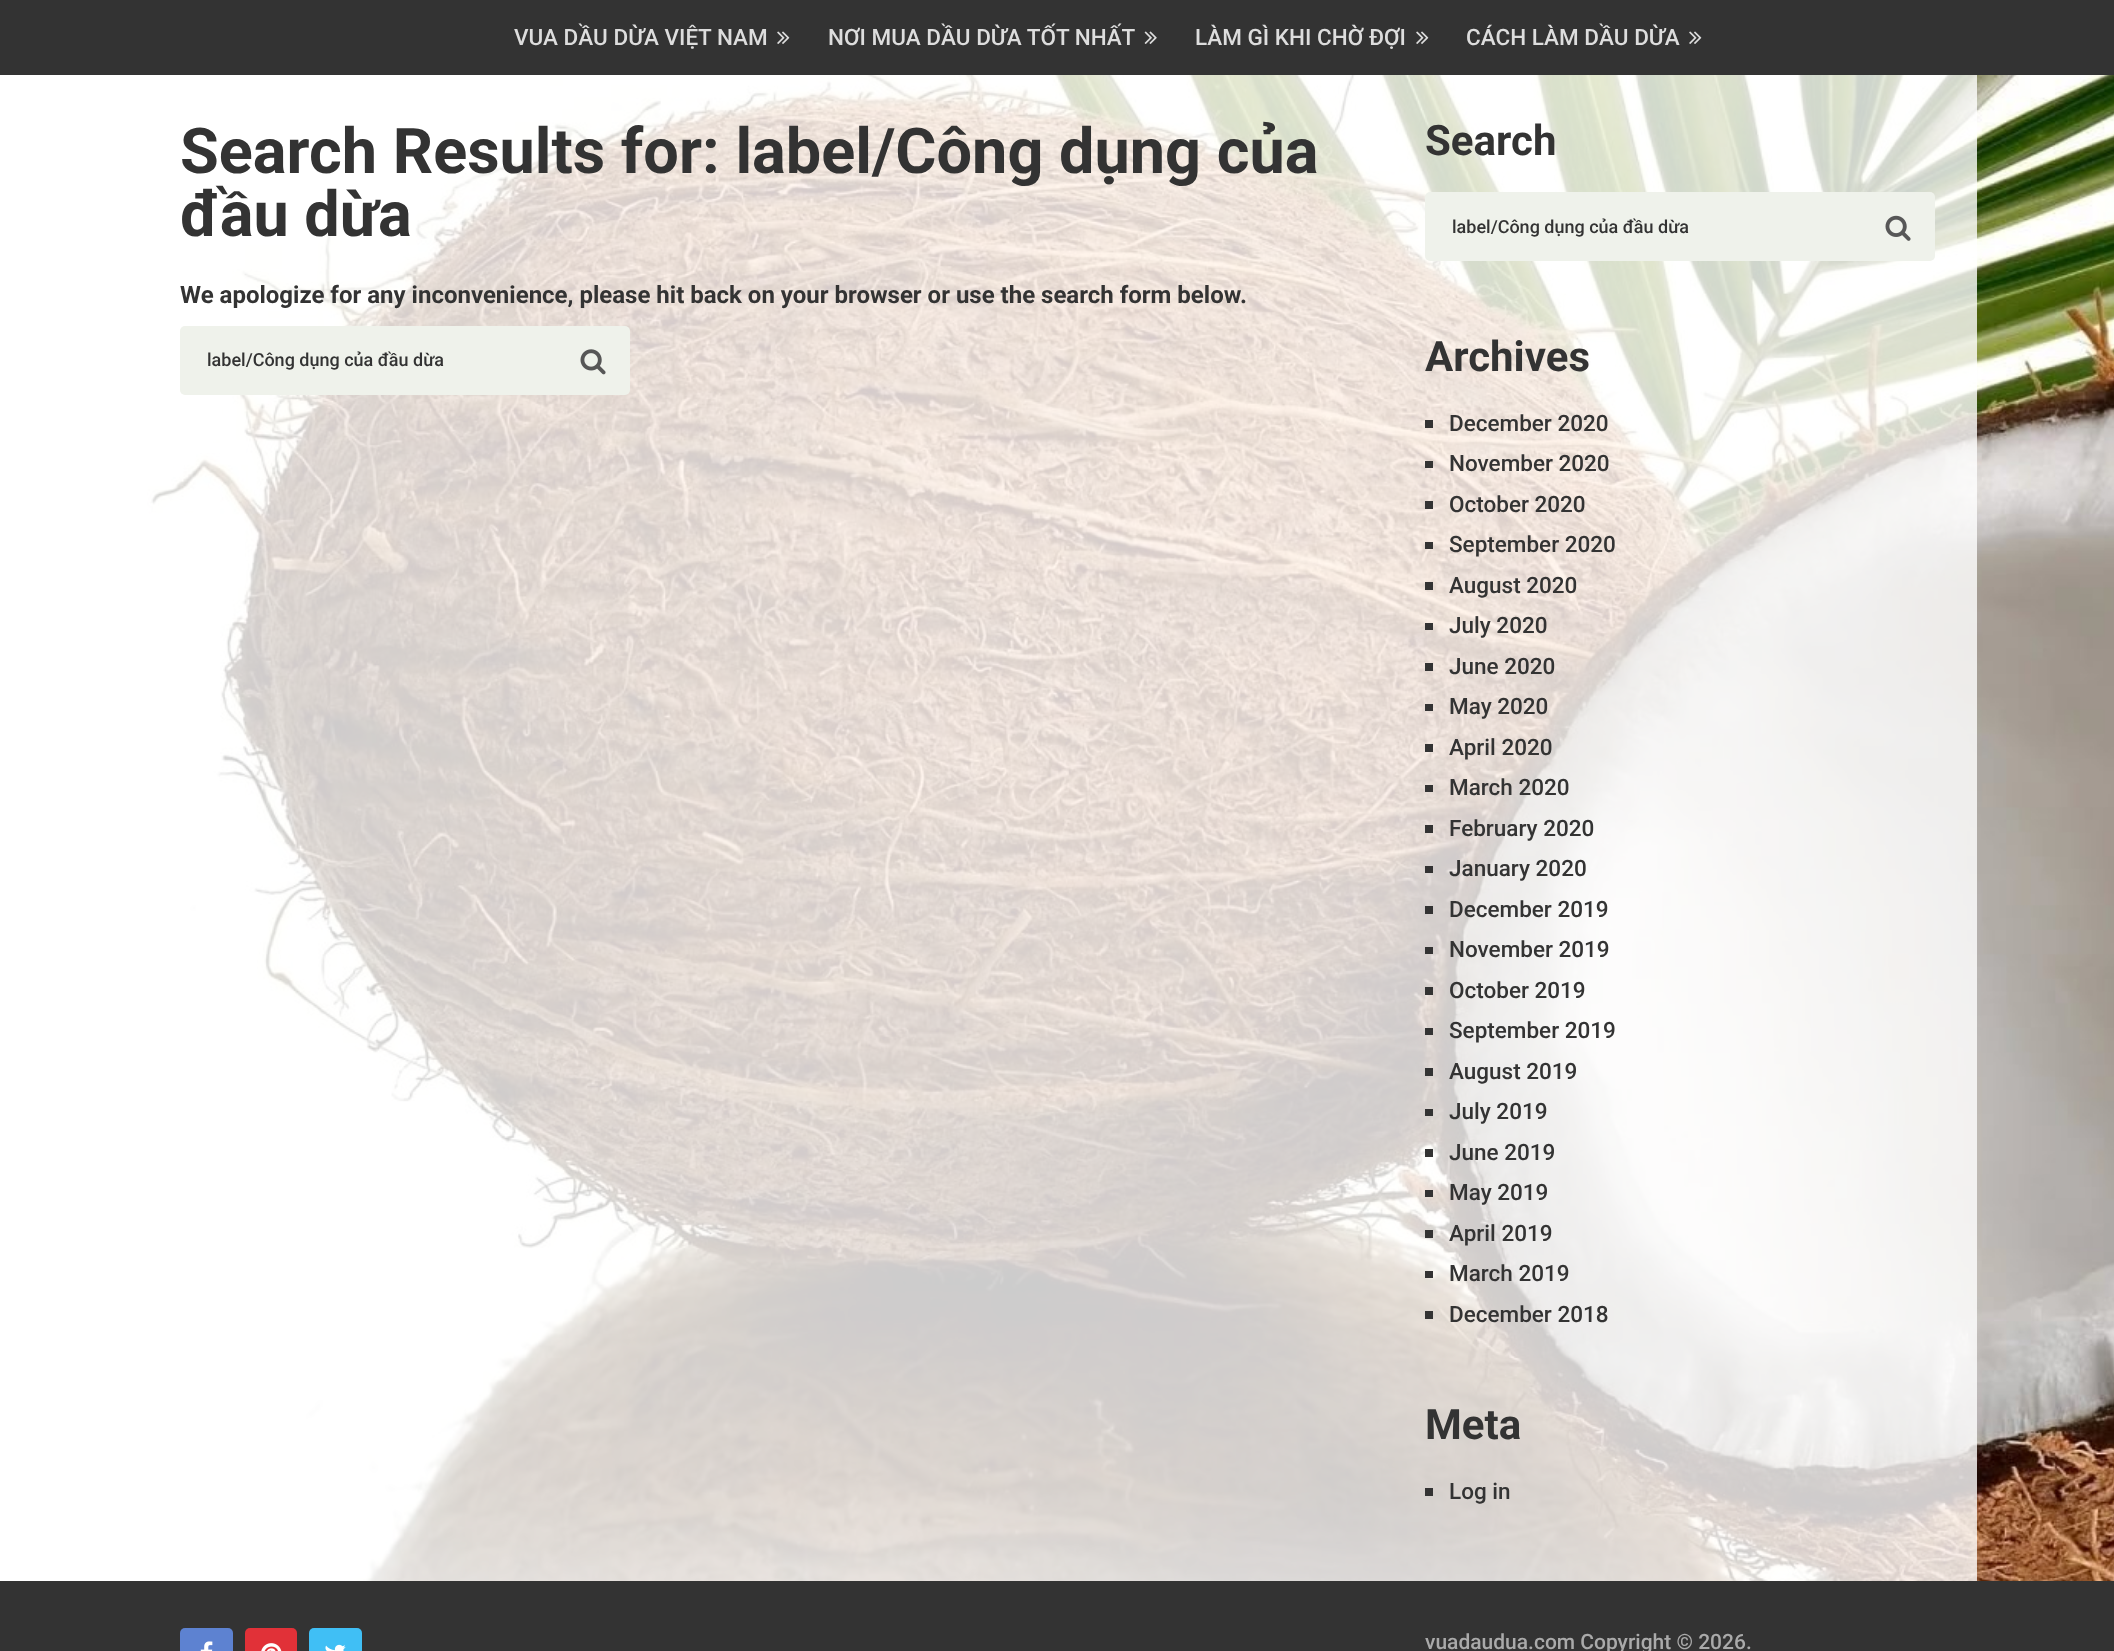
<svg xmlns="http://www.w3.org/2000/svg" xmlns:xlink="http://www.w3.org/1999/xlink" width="2114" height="1651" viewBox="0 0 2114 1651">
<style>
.cls-1{font:500 22.5px Roboto;fill:#dddddd}
.cls-2{font:bold 63px Roboto;fill:#333333}
.cls-3{font:bold 24px Roboto;fill:#333333}
.cls-4{font:500 18px Roboto;fill:#333333}
.cls-5{font:bold 42px Roboto;fill:#333333}
.cls-6{font:500 22.5px Roboto;fill:#333333}
.cls-7{font:500 21px Roboto;fill:#aaaaaa}
</style>
<rect width="100%" height="100%" fill="#ffffff"/>
<image xlink:href="image0.png" x="147" y="75" width="1967" height="1506"/>
<rect fill="#333333" x="0" y="0" width="2114" height="75"/>
<image xlink:href="image1.png" x="777" y="31" width="13" height="13"/>
<image xlink:href="image2.png" x="1144" y="31" width="13" height="13"/>
<image xlink:href="image1.png" x="1416" y="31" width="13" height="13"/>
<image xlink:href="image1.png" x="1689" y="31" width="13" height="13"/>
<rect fill="#ffffff" fill-opacity="0.8" x="147" y="75" width="1830" height="1506"/>
<rect fill="#eff2eb" x="180" y="326" width="450" height="69" rx="5"/>
<image xlink:href="image3.png" x="580" y="349" width="26" height="26"/>
<rect fill="#eff2eb" x="1425" y="192" width="510" height="69" rx="5"/>
<image xlink:href="image4.png" x="1885" y="215" width="26" height="26"/>
<rect fill="#333333" x="1425" y="420" width="8" height="8"/>
<rect fill="#333333" x="1425" y="461" width="8" height="7"/>
<rect fill="#333333" x="1425" y="501" width="8" height="8"/>
<rect fill="#333333" x="1425" y="542" width="8" height="7"/>
<rect fill="#333333" x="1425" y="582" width="8" height="8"/>
<rect fill="#333333" x="1425" y="623" width="8" height="7"/>
<rect fill="#333333" x="1425" y="663" width="8" height="8"/>
<rect fill="#333333" x="1425" y="704" width="8" height="7"/>
<rect fill="#333333" x="1425" y="744" width="8" height="8"/>
<rect fill="#333333" x="1425" y="785" width="8" height="7"/>
<rect fill="#333333" x="1425" y="825" width="8" height="8"/>
<rect fill="#333333" x="1425" y="866" width="8" height="7"/>
<rect fill="#333333" x="1425" y="906" width="8" height="8"/>
<rect fill="#333333" x="1425" y="947" width="8" height="7"/>
<rect fill="#333333" x="1425" y="987" width="8" height="8"/>
<rect fill="#333333" x="1425" y="1028" width="8" height="7"/>
<rect fill="#333333" x="1425" y="1068" width="8" height="8"/>
<rect fill="#333333" x="1425" y="1109" width="8" height="7"/>
<rect fill="#333333" x="1425" y="1149" width="8" height="8"/>
<rect fill="#333333" x="1425" y="1190" width="8" height="7"/>
<rect fill="#333333" x="1425" y="1230" width="8" height="8"/>
<rect fill="#333333" x="1425" y="1271" width="8" height="7"/>
<rect fill="#333333" x="1425" y="1311" width="8" height="8"/>
<rect fill="#333333" x="1425" y="1488" width="8" height="8"/>
<rect fill="#333333" x="0" y="1581" width="2114" height="70"/>
<rect fill="#5d82d1" x="180" y="1628" width="53" height="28" rx="5"/>
<image xlink:href="image5.png" x="200" y="1641" width="13" height="10"/>
<rect fill="#e13138" x="245" y="1628" width="52" height="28" rx="5"/>
<image xlink:href="image6.png" x="261" y="1643" width="21" height="8"/>
<rect fill="#40bff5" x="309" y="1628" width="53" height="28" rx="5"/>
<image xlink:href="image7.png" x="325" y="1644" width="21" height="7"/>
<text class="cls-1" x="514" y="45">VUA DẦU DỪA VIỆT NAM</text>
<text class="cls-1" x="828" y="45">NƠI MUA DẦU DỪA TỐT NHẤT</text>
<text class="cls-1" x="1195" y="45">LÀM GÌ KHI CHỜ ĐỢI</text>
<text class="cls-1" x="1466" y="45">CÁCH LÀM DẦU DỪA</text>
<text class="cls-2"><tspan x="180" y="173">Search Results for: label/Công dụng của</tspan><tspan x="180" y="236">đầu dừa</tspan></text>
<text class="cls-3" x="180" y="303">We apologize for any inconvenience, please hit back on your browser or use the search form below.</text>
<text class="cls-4" x="207" y="366">label/Công dụng của đầu dừa</text>
<text class="cls-5" x="1425" y="155">Search</text>
<text class="cls-4" x="1452" y="233">label/Công dụng của đầu dừa</text>
<text class="cls-5" x="1425" y="371">Archives</text>
<text class="cls-6"><tspan x="1449" y="431">December 2020</tspan><tspan x="1449" y="471">November 2020</tspan><tspan x="1449" y="512">October 2020</tspan><tspan x="1449" y="552">September 2020</tspan><tspan x="1449" y="593">August 2020</tspan><tspan x="1449" y="633">July 2020</tspan><tspan x="1449" y="674">June 2020</tspan><tspan x="1449" y="714">May 2020</tspan><tspan x="1449" y="755">April 2020</tspan><tspan x="1449" y="795">March 2020</tspan><tspan x="1449" y="836">February 2020</tspan><tspan x="1449" y="876">January 2020</tspan><tspan x="1449" y="917">December 2019</tspan><tspan x="1449" y="957">November 2019</tspan><tspan x="1449" y="998">October 2019</tspan><tspan x="1449" y="1038">September 2019</tspan><tspan x="1449" y="1079">August 2019</tspan><tspan x="1449" y="1119">July 2019</tspan><tspan x="1449" y="1160">June 2019</tspan><tspan x="1449" y="1200">May 2019</tspan><tspan x="1449" y="1241">April 2019</tspan><tspan x="1449" y="1281">March 2019</tspan><tspan x="1449" y="1322">December 2018</tspan></text>
<text class="cls-5" x="1425" y="1439">Meta</text>
<text class="cls-6" x="1449" y="1499">Log in</text>
<text class="cls-7" x="1425" y="1649">vuadaudua.com Copyright © 2026.</text>
</svg>
